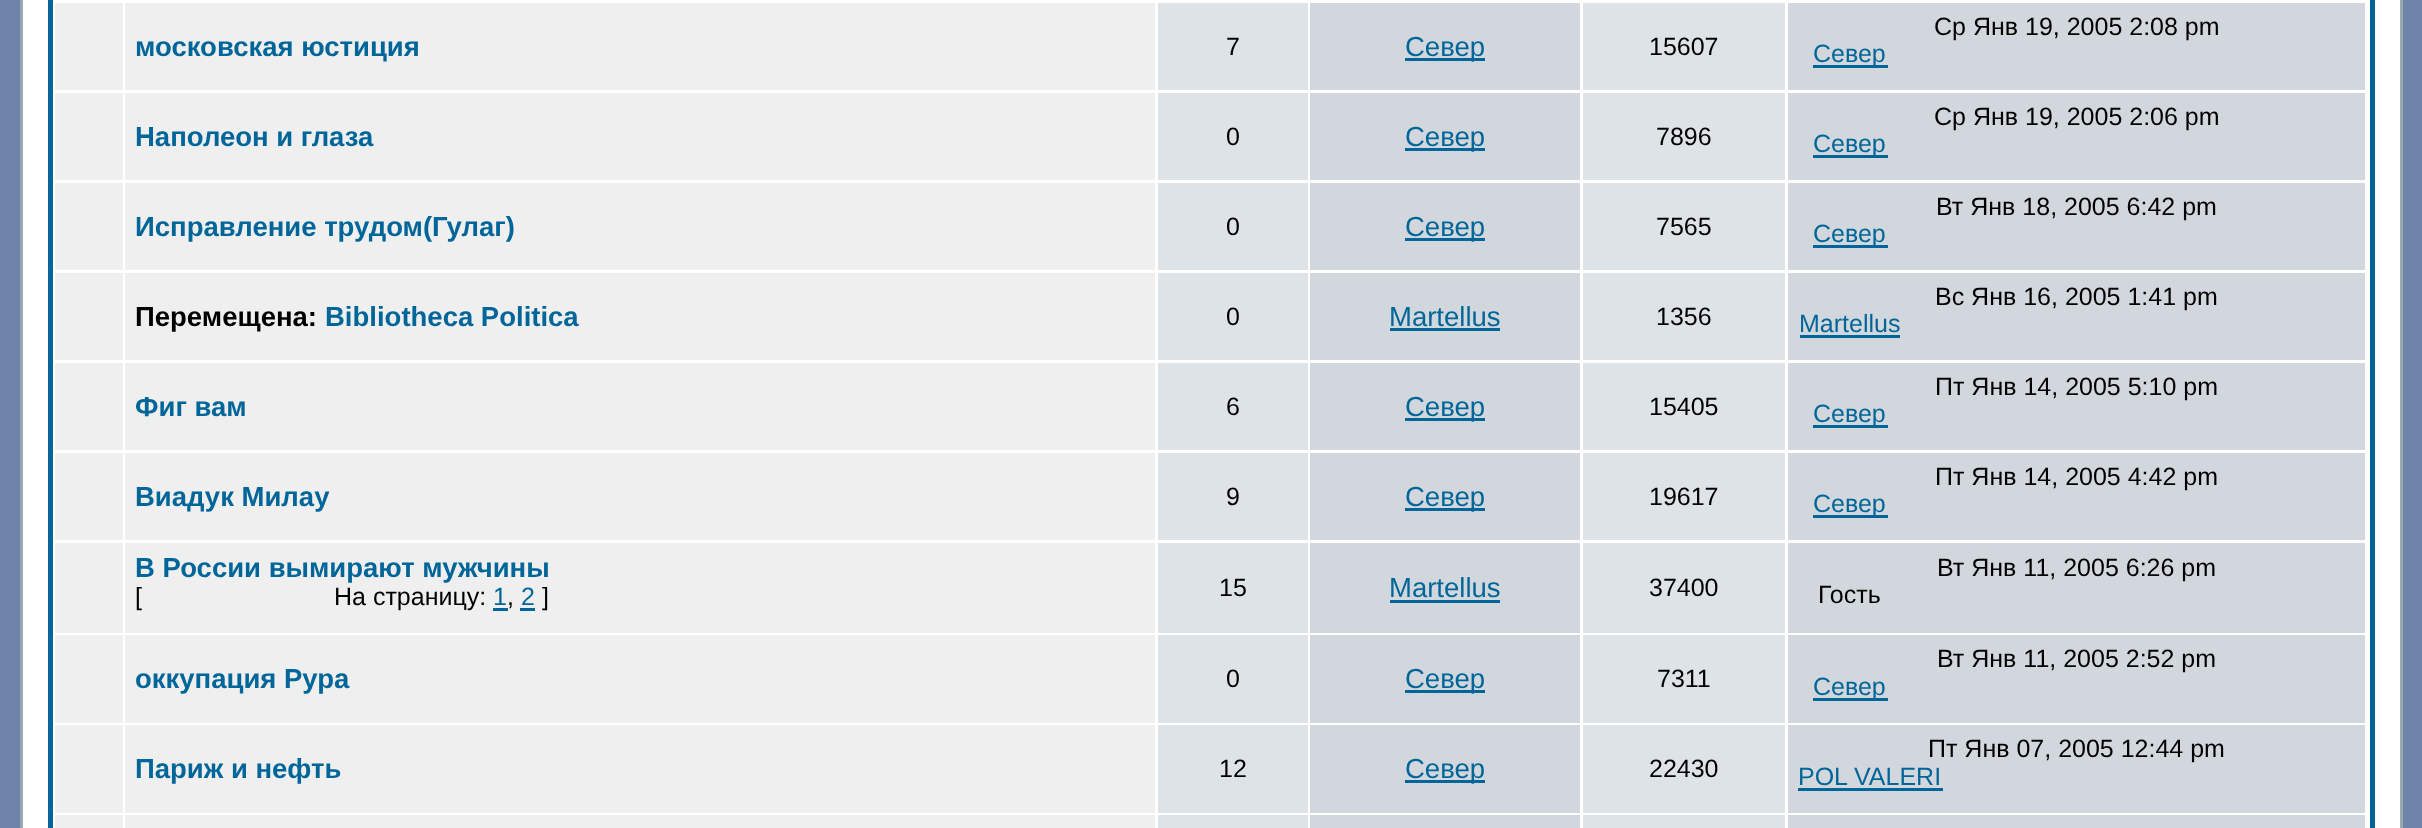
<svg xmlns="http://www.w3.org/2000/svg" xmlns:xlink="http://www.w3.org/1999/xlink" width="2422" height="828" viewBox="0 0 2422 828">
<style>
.cls-1{font:bold 27.5px Liberation Sans;fill:#006699}
.cls-2{font:25px Liberation Sans;fill:#000000}
.cls-3{font:27.5px Liberation Sans;fill:#006699}
.cls-4{font:25px Liberation Sans;fill:#006699}
.cls-5{font:bold 27.5px Liberation Sans;fill:#000000}
</style>
<rect width="100%" height="100%" fill="#6d83aa"/>
<rect fill="#ffffff" stroke="#98aab1" stroke-width="3" x="21.5" y="-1.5" width="2380" height="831"/>
<rect fill="none" stroke="#006699" stroke-width="5" x="50.5" y="-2.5" width="2322" height="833"/>
<rect fill="#efefef" x="55" y="3" width="68" height="87"/>
<rect fill="#efefef" x="125" y="3" width="1030" height="87"/>
<rect fill="#dee3e7" x="1158" y="3" width="150" height="87"/>
<rect fill="#d1d7dc" x="1310" y="3" width="270" height="87"/>
<rect fill="#006699" x="1405" y="58" width="80" height="3"/>
<rect fill="#dee3e7" x="1583" y="3" width="202" height="87"/>
<rect fill="#d1d7dc" x="1788" y="3" width="577" height="87"/>
<rect fill="#006699" x="1813" y="65" width="75" height="3"/>
<rect fill="#efefef" x="55" y="93" width="68" height="87"/>
<rect fill="#efefef" x="125" y="93" width="1030" height="87"/>
<rect fill="#dee3e7" x="1158" y="93" width="150" height="87"/>
<rect fill="#d1d7dc" x="1310" y="93" width="270" height="87"/>
<rect fill="#006699" x="1405" y="148" width="80" height="3"/>
<rect fill="#dee3e7" x="1583" y="93" width="202" height="87"/>
<rect fill="#d1d7dc" x="1788" y="93" width="577" height="87"/>
<rect fill="#006699" x="1813" y="155" width="75" height="3"/>
<rect fill="#efefef" x="55" y="183" width="68" height="87"/>
<rect fill="#efefef" x="125" y="183" width="1030" height="87"/>
<rect fill="#dee3e7" x="1158" y="183" width="150" height="87"/>
<rect fill="#d1d7dc" x="1310" y="183" width="270" height="87"/>
<rect fill="#006699" x="1405" y="238" width="80" height="3"/>
<rect fill="#dee3e7" x="1583" y="183" width="202" height="87"/>
<rect fill="#d1d7dc" x="1788" y="183" width="577" height="87"/>
<rect fill="#006699" x="1813" y="245" width="75" height="3"/>
<rect fill="#efefef" x="55" y="273" width="68" height="87"/>
<rect fill="#efefef" x="125" y="273" width="1030" height="87"/>
<rect fill="#dee3e7" x="1158" y="273" width="150" height="87"/>
<rect fill="#d1d7dc" x="1310" y="273" width="270" height="87"/>
<rect fill="#006699" x="1390" y="328" width="110" height="3"/>
<rect fill="#dee3e7" x="1583" y="273" width="202" height="87"/>
<rect fill="#d1d7dc" x="1788" y="273" width="577" height="87"/>
<rect fill="#006699" x="1800" y="335" width="100" height="3"/>
<rect fill="#efefef" x="55" y="363" width="68" height="87"/>
<rect fill="#efefef" x="125" y="363" width="1030" height="87"/>
<rect fill="#dee3e7" x="1158" y="363" width="150" height="87"/>
<rect fill="#d1d7dc" x="1310" y="363" width="270" height="87"/>
<rect fill="#006699" x="1405" y="418" width="80" height="3"/>
<rect fill="#dee3e7" x="1583" y="363" width="202" height="87"/>
<rect fill="#d1d7dc" x="1788" y="363" width="577" height="87"/>
<rect fill="#006699" x="1813" y="425" width="75" height="3"/>
<rect fill="#efefef" x="55" y="453" width="68" height="87"/>
<rect fill="#efefef" x="125" y="453" width="1030" height="87"/>
<rect fill="#dee3e7" x="1158" y="453" width="150" height="87"/>
<rect fill="#d1d7dc" x="1310" y="453" width="270" height="87"/>
<rect fill="#006699" x="1405" y="508" width="80" height="3"/>
<rect fill="#dee3e7" x="1583" y="453" width="202" height="87"/>
<rect fill="#d1d7dc" x="1788" y="453" width="577" height="87"/>
<rect fill="#006699" x="1813" y="515" width="75" height="3"/>
<rect fill="#efefef" x="55" y="543" width="68" height="90"/>
<rect fill="#efefef" x="125" y="543" width="1030" height="90"/>
<rect fill="#006699" x="493" y="608" width="15" height="3"/>
<rect fill="#006699" x="520" y="608" width="15" height="3"/>
<rect fill="#dee3e7" x="1158" y="543" width="150" height="90"/>
<rect fill="#d1d7dc" x="1310" y="543" width="270" height="90"/>
<rect fill="#006699" x="1390" y="600" width="110" height="3"/>
<rect fill="#dee3e7" x="1583" y="543" width="202" height="90"/>
<rect fill="#d1d7dc" x="1788" y="543" width="577" height="90"/>
<rect fill="#efefef" x="55" y="635" width="68" height="88"/>
<rect fill="#efefef" x="125" y="635" width="1030" height="88"/>
<rect fill="#dee3e7" x="1158" y="635" width="150" height="88"/>
<rect fill="#d1d7dc" x="1310" y="635" width="270" height="88"/>
<rect fill="#006699" x="1405" y="690" width="80" height="3"/>
<rect fill="#dee3e7" x="1583" y="635" width="202" height="88"/>
<rect fill="#d1d7dc" x="1788" y="635" width="577" height="88"/>
<rect fill="#006699" x="1813" y="698" width="75" height="3"/>
<rect fill="#efefef" x="55" y="725" width="68" height="88"/>
<rect fill="#efefef" x="125" y="725" width="1030" height="88"/>
<rect fill="#dee3e7" x="1158" y="725" width="150" height="88"/>
<rect fill="#d1d7dc" x="1310" y="725" width="270" height="88"/>
<rect fill="#006699" x="1405" y="780" width="80" height="3"/>
<rect fill="#dee3e7" x="1583" y="725" width="202" height="88"/>
<rect fill="#d1d7dc" x="1788" y="725" width="577" height="88"/>
<rect fill="#006699" x="1798" y="788" width="145" height="3"/>
<rect fill="#efefef" x="55" y="815" width="68" height="13"/>
<rect fill="#efefef" x="125" y="815" width="1030" height="13"/>
<rect fill="#dee3e7" x="1158" y="815" width="150" height="13"/>
<rect fill="#d1d7dc" x="1310" y="815" width="270" height="13"/>
<rect fill="#dee3e7" x="1583" y="815" width="202" height="13"/>
<rect fill="#d1d7dc" x="1788" y="815" width="577" height="13"/>
<text class="cls-1" x="135" y="56">московская юстиция</text>
<text class="cls-2" x="1226" y="55">7</text>
<text class="cls-3" x="1405" y="56">Север</text>
<text class="cls-2" x="1649" y="55">15607</text>
<text class="cls-2" x="1934" y="35">Ср Янв 19, 2005 2:08 pm</text>
<text class="cls-4" x="1813" y="62">Север</text>
<text class="cls-1" x="135" y="146">Наполеон и глаза</text>
<text class="cls-2" x="1226" y="145">0</text>
<text class="cls-3" x="1405" y="146">Север</text>
<text class="cls-2" x="1656" y="145">7896</text>
<text class="cls-2" x="1934" y="125">Ср Янв 19, 2005 2:06 pm</text>
<text class="cls-4" x="1813" y="152">Север</text>
<text class="cls-1" x="135" y="236">Исправление трудом(Гулаг)</text>
<text class="cls-2" x="1226" y="235">0</text>
<text class="cls-3" x="1405" y="236">Север</text>
<text class="cls-2" x="1656" y="235">7565</text>
<text class="cls-2" x="1936" y="215">Вт Янв 18, 2005 6:42 pm</text>
<text class="cls-4" x="1813" y="242">Север</text>
<text class="cls-5" x="135" y="326">Перемещена:</text>
<text class="cls-1" x="325" y="326">Bibliotheca Politica</text>
<text class="cls-2" x="1226" y="325">0</text>
<text class="cls-3" x="1389" y="326">Martellus</text>
<text class="cls-2" x="1656" y="325">1356</text>
<text class="cls-2" x="1935" y="305">Вс Янв 16, 2005 1:41 pm</text>
<text class="cls-4" x="1799" y="332">Martellus</text>
<text class="cls-1" x="135" y="416">Фиг вам</text>
<text class="cls-2" x="1226" y="415">6</text>
<text class="cls-3" x="1405" y="416">Север</text>
<text class="cls-2" x="1649" y="415">15405</text>
<text class="cls-2" x="1935" y="395">Пт Янв 14, 2005 5:10 pm</text>
<text class="cls-4" x="1813" y="422">Север</text>
<text class="cls-1" x="135" y="506">Виадук Милау</text>
<text class="cls-2" x="1226" y="505">9</text>
<text class="cls-3" x="1405" y="506">Север</text>
<text class="cls-2" x="1649" y="505">19617</text>
<text class="cls-2" x="1935" y="485">Пт Янв 14, 2005 4:42 pm</text>
<text class="cls-4" x="1813" y="512">Север</text>
<text class="cls-1" x="135" y="577">В России вымирают мужчины</text>
<text class="cls-2" x="135" y="605">[</text>
<text class="cls-2" x="334" y="605">На страницу:</text>
<text class="cls-4" x="493" y="605">1</text>
<text class="cls-2" x="507" y="605">,</text>
<text class="cls-4" x="521" y="605">2</text>
<text class="cls-2" x="542" y="605">]</text>
<text class="cls-2" x="1219" y="596">15</text>
<text class="cls-3" x="1389" y="597">Martellus</text>
<text class="cls-2" x="1649" y="596">37400</text>
<text class="cls-2" x="1937" y="576">Вт Янв 11, 2005 6:26 pm</text>
<text class="cls-2" x="1818" y="603">Гость</text>
<text class="cls-1" x="135" y="688">оккупация Рура</text>
<text class="cls-2" x="1226" y="687">0</text>
<text class="cls-3" x="1405" y="688">Север</text>
<text class="cls-2" x="1657" y="687">7311</text>
<text class="cls-2" x="1937" y="667">Вт Янв 11, 2005 2:52 pm</text>
<text class="cls-4" x="1813" y="695">Север</text>
<text class="cls-1" x="135" y="778">Париж и нефть</text>
<text class="cls-2" x="1219" y="777">12</text>
<text class="cls-3" x="1405" y="778">Север</text>
<text class="cls-2" x="1649" y="777">22430</text>
<text class="cls-2" x="1928" y="757">Пт Янв 07, 2005 12:44 pm</text>
<text class="cls-4" x="1798" y="785">POL VALERI</text>
</svg>
